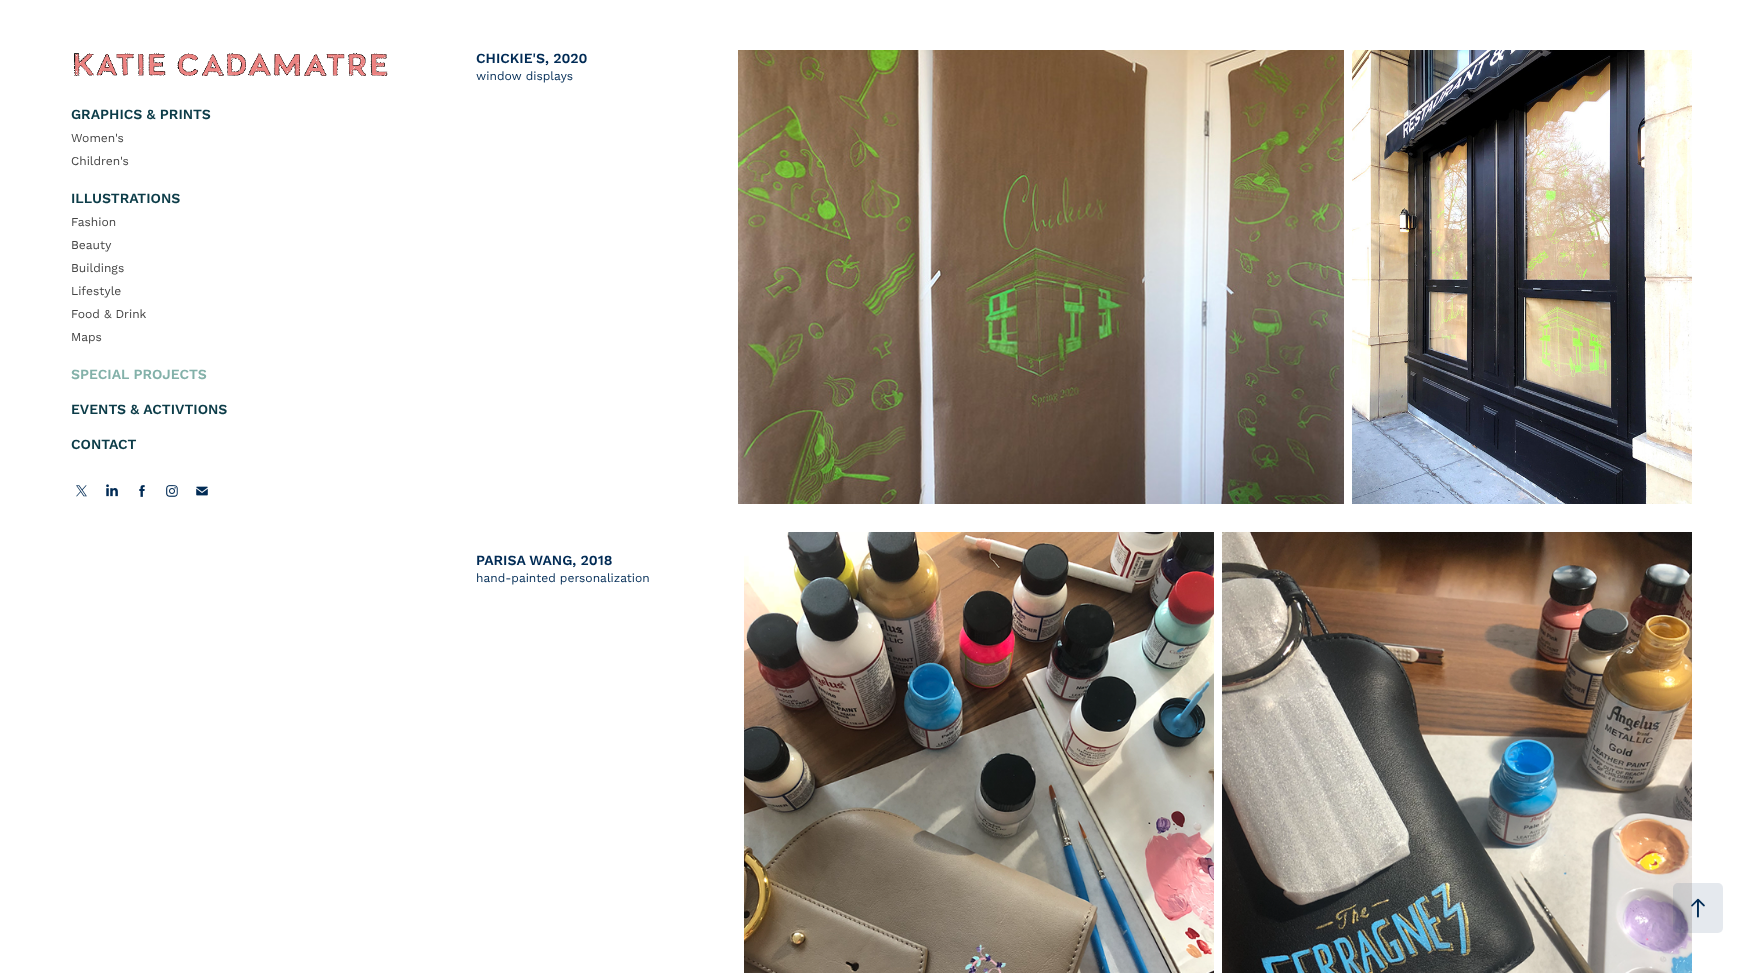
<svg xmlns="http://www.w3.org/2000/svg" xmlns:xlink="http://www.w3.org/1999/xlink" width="1763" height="973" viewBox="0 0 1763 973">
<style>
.cls-1{font:600 14px Work Sans;fill:#0c3c48}
.cls-2{font:12px Work Sans;fill:#444444}
.cls-3{font:600 14px Work Sans;fill:#83b1a9}
.cls-4{font:600 14px Work Sans;fill:#012b55}
.cls-5{font:12px Work Sans;fill:#012b55}
</style>
<rect width="100%" height="100%" fill="#ffffff"/>
<image xlink:href="image0.png" x="74" y="53" width="314" height="23"/>
<image xlink:href="image1.png" x="76" y="485" width="11" height="12"/>
<image xlink:href="image2.png" x="106" y="484" width="12" height="13"/>
<image xlink:href="image3.png" x="139" y="485" width="6" height="12"/>
<image xlink:href="image4.png" x="166" y="485" width="12" height="12"/>
<image xlink:href="image5.png" x="196" y="486" width="12" height="10"/>
<image xlink:href="image6.png" x="738" y="50" width="606" height="454"/>
<image xlink:href="image7.png" x="1352" y="50" width="340" height="454"/>
<image xlink:href="image8.png" x="744" y="532" width="470" height="441"/>
<image xlink:href="image9.png" x="1222" y="532" width="470" height="441"/>
<rect fill="#012b55" fill-opacity="0.1" x="1673" y="883" width="50" height="50" rx="5"/>
<image xlink:href="image10.png" x="1691" y="898" width="14" height="20"/>
<text class="cls-1" x="71" y="119">GRAPHICS &amp; PRINTS</text>
<text class="cls-2"><tspan x="71" y="142">Women's</tspan><tspan x="71" y="165">Children's</tspan></text>
<text class="cls-1" x="71" y="203">ILLUSTRATIONS</text>
<text class="cls-2"><tspan x="71" y="226">Fashion</tspan><tspan x="71" y="249">Beauty</tspan><tspan x="71" y="272">Buildings</tspan><tspan x="71" y="295">Lifestyle</tspan><tspan x="71" y="318">Food &amp; Drink</tspan><tspan x="71" y="341">Maps</tspan></text>
<text class="cls-3" x="71" y="379">SPECIAL PROJECTS</text>
<text class="cls-1" x="71" y="414">EVENTS &amp; ACTIVTIONS</text>
<text class="cls-1" x="71" y="449">CONTACT</text>
<text class="cls-4" x="476" y="63">CHICKIE'S, 2020</text>
<text class="cls-5" x="476" y="80">window displays</text>
<text class="cls-4" x="476" y="565">PARISA WANG, 2018</text>
<text class="cls-5" x="476" y="582">hand-painted personalization</text>
</svg>
